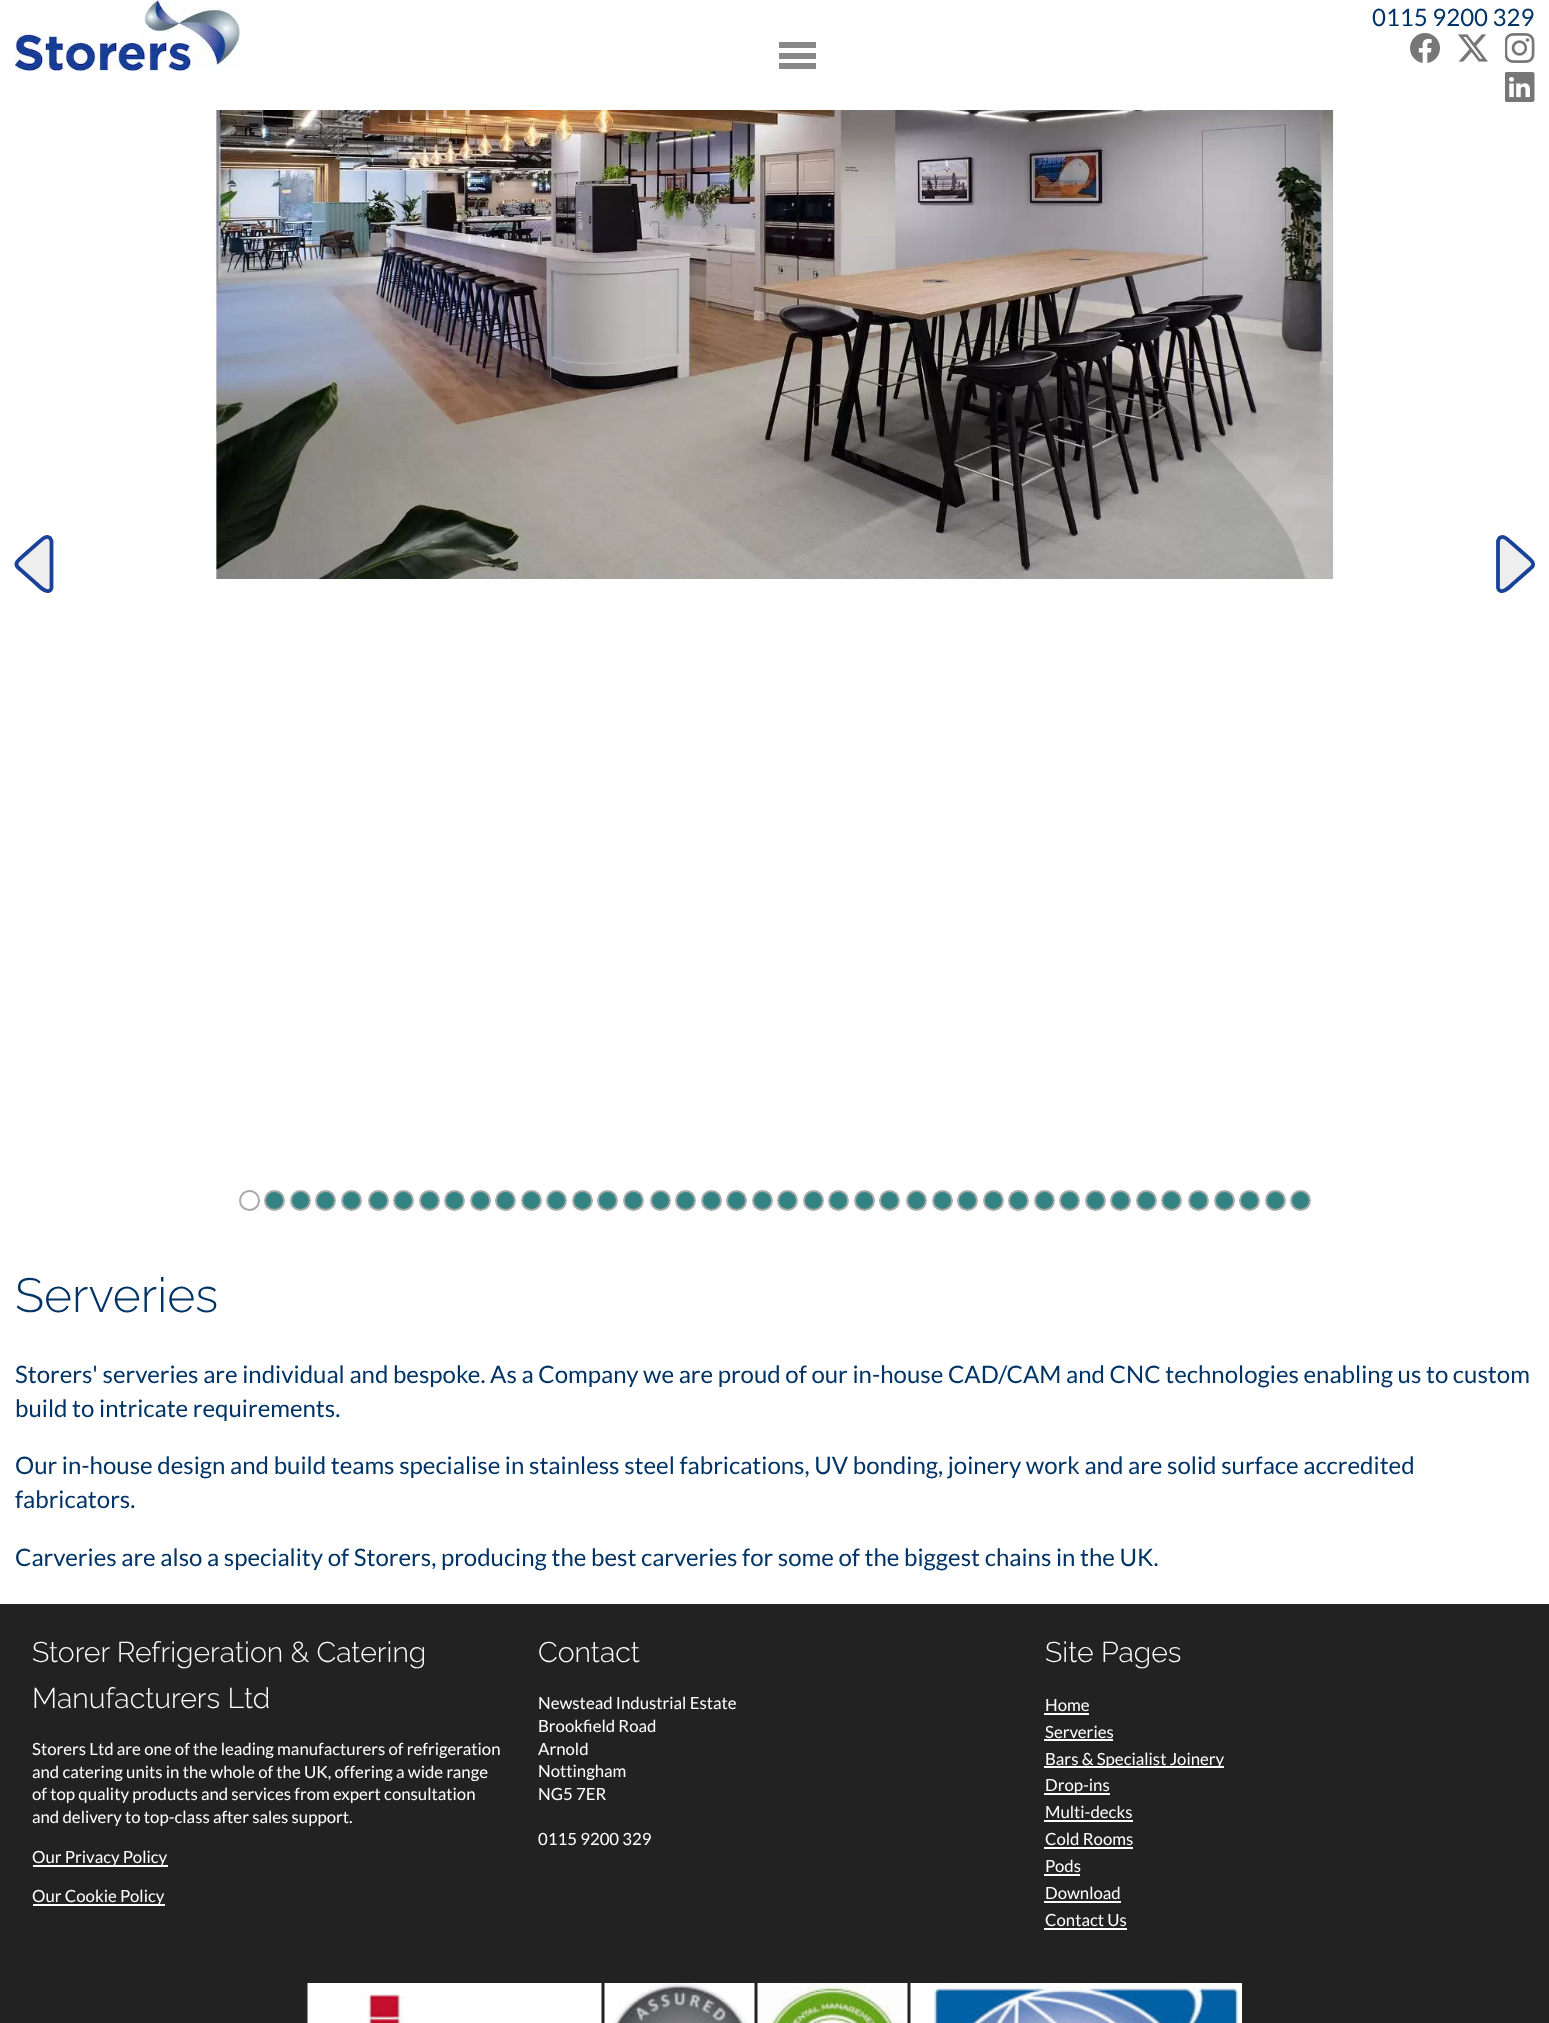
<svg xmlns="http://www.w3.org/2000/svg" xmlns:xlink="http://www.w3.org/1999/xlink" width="1549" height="2023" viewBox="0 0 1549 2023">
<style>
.cls-1{font:24px Lato;fill:#003366}
.cls-2{font:100 48px Raleway;fill:#003366}
.cls-3{font:100 28.5px Raleway;fill:#ffffff}
.cls-4{font:16.8px Lato;fill:#ffffff}
</style>
<rect width="100%" height="100%" fill="#ffffff"/>
<image xlink:href="image0.png" x="15" y="0" width="225" height="71"/>
<image xlink:href="image1.png" x="1410" y="33" width="30" height="30"/>
<image xlink:href="image2.png" x="1458" y="34" width="30" height="28"/>
<image xlink:href="image3.png" x="1505" y="33" width="30" height="30"/>
<image xlink:href="image4.png" x="1505" y="72" width="30" height="30"/>
<rect fill="#888888" x="779" y="42" width="37" height="6"/>
<rect fill="#888888" x="779" y="53" width="37" height="6"/>
<rect fill="#888888" x="779" y="63" width="37" height="6"/>
<path fill="#eeeeee" d="M18 568L35 583C37 584 49 597 51 588L52 541L50 538C46 535 42 539 40 542L22 557C20 559 13 563 18 568Z"/>
<path fill="none" stroke="#1a4299" stroke-width="3.8" d="M18 567.5L35 582.5C37.5 584.5 48.5 597 51.5 588V541L50 538C46 534.5 42 539.5 39.5 541.5L22.5 556.5C19.5 559 13.5 563.5 18 567.5Z"/>
<image xlink:href="image5.png" x="211" y="110" width="1123" height="469"/>
<path fill="#eeeeee" d="M1531 568L1514 583C1512 584 1501 597 1498 588V541L1500 538C1503 535 1507 539 1510 542L1527 557C1530 559 1536 563 1531 568Z"/>
<path fill="none" stroke="#1a4299" stroke-width="3.8" d="M1531.5 567.5L1514.5 582.5C1512 584.5 1501 597 1498 588V541L1499.5 538C1503.5 534.5 1507.5 539.5 1510 541.5L1527 556.5C1530 559 1536 563.5 1531.5 567.5Z"/>
<circle fill="none" stroke="#aaaaaa" stroke-width="2" cx="249.5" cy="1200.5" r="9.5"/>
<circle fill="#338383" stroke="#aaaaaa" stroke-width="2" cx="274.5" cy="1200.5" r="9.5"/>
<circle fill="#338383" stroke="#aaaaaa" stroke-width="2" cx="300.5" cy="1200.5" r="9.5"/>
<circle fill="#338383" stroke="#aaaaaa" stroke-width="2" cx="325.5" cy="1200.5" r="9.5"/>
<circle fill="#338383" stroke="#aaaaaa" stroke-width="2" cx="351.5" cy="1200.5" r="9.5"/>
<circle fill="#338383" stroke="#aaaaaa" stroke-width="2" cx="378.5" cy="1200.5" r="9.5"/>
<circle fill="#338383" stroke="#aaaaaa" stroke-width="2" cx="403.5" cy="1200.5" r="9.5"/>
<circle fill="#338383" stroke="#aaaaaa" stroke-width="2" cx="429.5" cy="1200.5" r="9.5"/>
<circle fill="#338383" stroke="#aaaaaa" stroke-width="2" cx="454.5" cy="1200.5" r="9.5"/>
<circle fill="#338383" stroke="#aaaaaa" stroke-width="2" cx="480.5" cy="1200.5" r="9.5"/>
<circle fill="#338383" stroke="#aaaaaa" stroke-width="2" cx="505.5" cy="1200.5" r="9.5"/>
<circle fill="#338383" stroke="#aaaaaa" stroke-width="2" cx="531.5" cy="1200.5" r="9.5"/>
<circle fill="#338383" stroke="#aaaaaa" stroke-width="2" cx="556.5" cy="1200.5" r="9.5"/>
<circle fill="#338383" stroke="#aaaaaa" stroke-width="2" cx="582.5" cy="1200.5" r="9.5"/>
<circle fill="#338383" stroke="#aaaaaa" stroke-width="2" cx="607.5" cy="1200.5" r="9.5"/>
<circle fill="#338383" stroke="#aaaaaa" stroke-width="2" cx="633.5" cy="1200.5" r="9.5"/>
<circle fill="#338383" stroke="#aaaaaa" stroke-width="2" cx="660.5" cy="1200.5" r="9.5"/>
<circle fill="#338383" stroke="#aaaaaa" stroke-width="2" cx="685.5" cy="1200.5" r="9.5"/>
<circle fill="#338383" stroke="#aaaaaa" stroke-width="2" cx="711.5" cy="1200.5" r="9.5"/>
<circle fill="#338383" stroke="#aaaaaa" stroke-width="2" cx="736.5" cy="1200.5" r="9.5"/>
<circle fill="#338383" stroke="#aaaaaa" stroke-width="2" cx="762.5" cy="1200.5" r="9.5"/>
<circle fill="#338383" stroke="#aaaaaa" stroke-width="2" cx="787.5" cy="1200.5" r="9.5"/>
<circle fill="#338383" stroke="#aaaaaa" stroke-width="2" cx="813.5" cy="1200.5" r="9.5"/>
<circle fill="#338383" stroke="#aaaaaa" stroke-width="2" cx="838.5" cy="1200.5" r="9.5"/>
<circle fill="#338383" stroke="#aaaaaa" stroke-width="2" cx="864.5" cy="1200.5" r="9.5"/>
<circle fill="#338383" stroke="#aaaaaa" stroke-width="2" cx="889.5" cy="1200.5" r="9.5"/>
<circle fill="#338383" stroke="#aaaaaa" stroke-width="2" cx="916.5" cy="1200.5" r="9.5"/>
<circle fill="#338383" stroke="#aaaaaa" stroke-width="2" cx="942.5" cy="1200.5" r="9.5"/>
<circle fill="#338383" stroke="#aaaaaa" stroke-width="2" cx="967.5" cy="1200.5" r="9.5"/>
<circle fill="#338383" stroke="#aaaaaa" stroke-width="2" cx="993.5" cy="1200.5" r="9.5"/>
<circle fill="#338383" stroke="#aaaaaa" stroke-width="2" cx="1018.5" cy="1200.5" r="9.5"/>
<circle fill="#338383" stroke="#aaaaaa" stroke-width="2" cx="1044.5" cy="1200.5" r="9.5"/>
<circle fill="#338383" stroke="#aaaaaa" stroke-width="2" cx="1069.5" cy="1200.5" r="9.5"/>
<circle fill="#338383" stroke="#aaaaaa" stroke-width="2" cx="1095.5" cy="1200.5" r="9.5"/>
<circle fill="#338383" stroke="#aaaaaa" stroke-width="2" cx="1120.5" cy="1200.5" r="9.5"/>
<circle fill="#338383" stroke="#aaaaaa" stroke-width="2" cx="1146.5" cy="1200.5" r="9.5"/>
<circle fill="#338383" stroke="#aaaaaa" stroke-width="2" cx="1171.5" cy="1200.5" r="9.5"/>
<circle fill="#338383" stroke="#aaaaaa" stroke-width="2" cx="1198.5" cy="1200.5" r="9.5"/>
<circle fill="#338383" stroke="#aaaaaa" stroke-width="2" cx="1224.5" cy="1200.5" r="9.5"/>
<circle fill="#338383" stroke="#aaaaaa" stroke-width="2" cx="1249.5" cy="1200.5" r="9.5"/>
<circle fill="#338383" stroke="#aaaaaa" stroke-width="2" cx="1275.5" cy="1200.5" r="9.5"/>
<circle fill="#338383" stroke="#aaaaaa" stroke-width="2" cx="1300.5" cy="1200.5" r="9.5"/>
<rect fill="#222222" x="0" y="1604" width="1549" height="419"/>
<rect fill="#ffffff" x="33" y="1865" width="135" height="2"/>
<rect fill="#ffffff" x="33" y="1904" width="132" height="2"/>
<rect fill="#ffffff" x="1044" y="1713" width="45" height="2"/>
<rect fill="#ffffff" x="1044" y="1739" width="69" height="2"/>
<rect fill="#ffffff" x="1044" y="1766" width="180" height="2"/>
<rect fill="#ffffff" x="1044" y="1793" width="66" height="2"/>
<rect fill="#ffffff" x="1044" y="1820" width="89" height="2"/>
<rect fill="#ffffff" x="1044" y="1847" width="89" height="2"/>
<rect fill="#ffffff" x="1044" y="1874" width="36" height="2"/>
<rect fill="#ffffff" x="1044" y="1901" width="77" height="2"/>
<rect fill="#ffffff" x="1044" y="1928" width="83" height="2"/>
<image xlink:href="image6.png" x="307" y="1983" width="295" height="40"/>
<image xlink:href="image7.png" x="604" y="1983" width="151" height="40"/>
<image xlink:href="image8.png" x="757" y="1983" width="151" height="40"/>
<image xlink:href="image9.png" x="910" y="1983" width="332" height="40"/>
<text class="cls-1" x="1372" y="26">0115 9200 329</text>
<text class="cls-2" x="15" y="1312">Serveries</text>
<text class="cls-1"><tspan x="15" y="1383">Storers' serveries are individual and bespoke. As a Company we are proud of our in-house CAD/CAM and CNC technologies enabling us to custom</tspan><tspan x="15" y="1417">build to intricate requirements.</tspan></text>
<text class="cls-1"><tspan x="15" y="1474">Our in-house design and build teams specialise in stainless steel fabrications, UV bonding, joinery work and are solid surface accredited</tspan><tspan x="15" y="1508">fabricators.</tspan></text>
<text class="cls-1" x="15" y="1566">Carveries are also a speciality of Storers, producing the best carveries for some of the biggest chains in the UK.</text>
<text class="cls-3"><tspan x="32" y="1662">Storer Refrigeration &amp; Catering</tspan><tspan x="32" y="1708">Manufacturers Ltd</tspan></text>
<text class="cls-4"><tspan x="32" y="1755">Storers Ltd are one of the leading manufacturers of refrigeration</tspan><tspan x="32" y="1778">and catering units in the whole of the UK, offering a wide range</tspan><tspan x="32" y="1800">of top quality products and services from expert consultation</tspan><tspan x="32" y="1823">and delivery to top-class after sales support.</tspan></text>
<text class="cls-4" x="32" y="1863">Our Privacy Policy</text>
<text class="cls-4" x="32" y="1902">Our Cookie Policy</text>
<text class="cls-3" x="538" y="1662">Contact</text>
<text class="cls-4"><tspan x="538" y="1709">Newstead Industrial Estate</tspan><tspan x="538" y="1732">Brookfield Road</tspan><tspan x="538" y="1755">Arnold</tspan><tspan x="538" y="1777">Nottingham</tspan><tspan x="538" y="1800">NG5 7ER</tspan></text>
<text class="cls-4" x="538" y="1845">0115 9200 329</text>
<text class="cls-3" x="1045" y="1662">Site Pages</text>
<text class="cls-4"><tspan x="1045" y="1711">Home</tspan><tspan x="1045" y="1738">Serveries</tspan><tspan x="1045" y="1765">Bars &amp; Specialist Joinery</tspan><tspan x="1045" y="1791">Drop-ins</tspan><tspan x="1045" y="1818">Multi-decks</tspan><tspan x="1045" y="1845">Cold Rooms</tspan><tspan x="1045" y="1872">Pods</tspan><tspan x="1045" y="1899">Download</tspan><tspan x="1045" y="1926">Contact Us</tspan></text>
</svg>
